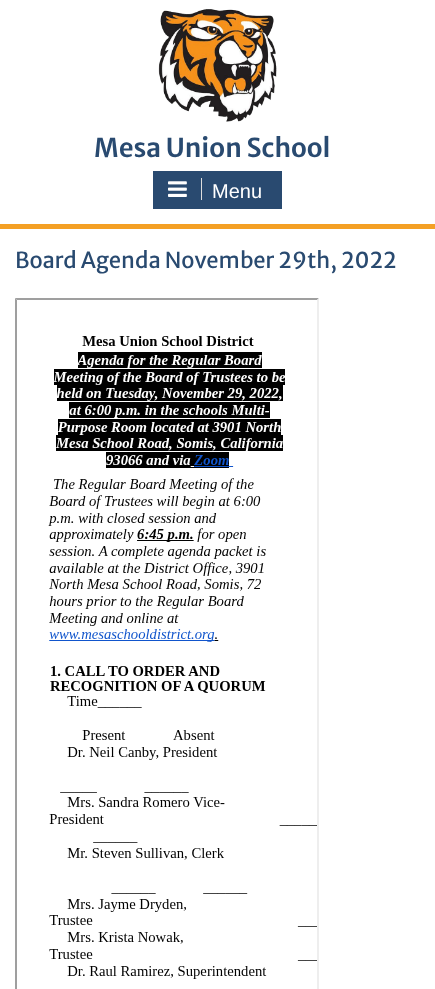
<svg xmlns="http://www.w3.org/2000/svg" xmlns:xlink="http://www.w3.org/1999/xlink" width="435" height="989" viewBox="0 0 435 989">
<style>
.cls-1{font:600 26px Merriweather Sans;fill:#294a70}
.cls-2{font:20px Liberation Sans;fill:#ffffff}
.cls-3{font:22px Merriweather Sans;fill:#294a70}
</style>
<rect width="100%" height="100%" fill="#ffffff"/>
<image xlink:href="image0.png" x="158" y="9" width="119" height="113"/>
<rect fill="#f4a024" x="0" y="224" width="435" height="5"/>
<rect fill="#294a70" x="153" y="171" width="129" height="38"/>
<rect fill="#dddddd" x="201" y="178" width="1" height="22"/>
<image xlink:href="image1.png" x="168" y="181" width="19" height="16"/>
<path fill="#9f9f9f" d="M15 298H319L317 300H17Z"/>
<path fill="#9f9f9f" d="M15 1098V298L17 300V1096Z"/>
<image xlink:href="image2.png" x="48" y="336" width="269" height="643"/>
<path fill="#eeeeee" d="M319 298V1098L317 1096V300Z"/>
<text class="cls-1" x="94" y="157">Mesa Union School</text>
<text class="cls-2" x="212" y="198">Menu</text>
<text class="cls-3" x="15" y="268">Board Agenda November 29th, 2022</text>
</svg>
